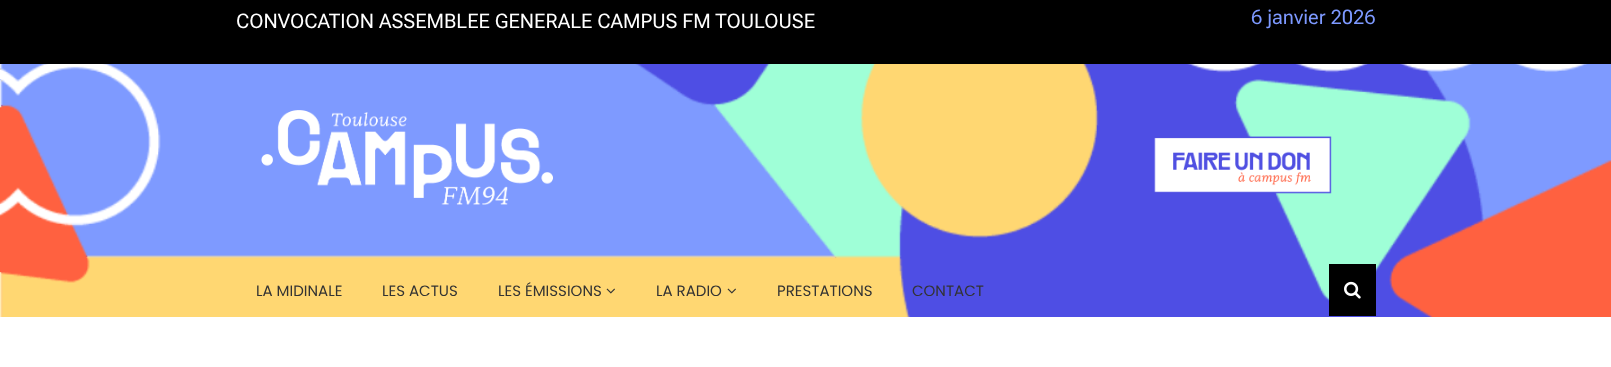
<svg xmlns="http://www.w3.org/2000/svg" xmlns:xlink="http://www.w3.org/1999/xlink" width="1611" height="367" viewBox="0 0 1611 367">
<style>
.cls-1{font:20px Roboto Flex;fill:#ffffff}
.cls-2{font:20px Roboto Flex;fill:#7d99ff}
.cls-3{font:15px Poppins;fill:#333333}
</style>
<rect width="100%" height="100%" fill="#ffffff"/>
<image xlink:href="image0.png" x="0" y="64" width="1611" height="253"/>
<rect fill="#000000" x="0" y="0" width="1611" height="64"/>
<image xlink:href="image1.png" x="261" y="110" width="292" height="95"/>
<image xlink:href="image2.png" x="1154" y="136" width="178" height="58"/>
<image xlink:href="image3.png" x="606" y="288" width="9" height="6"/>
<image xlink:href="image3.png" x="727" y="288" width="9" height="6"/>
<rect fill="#000000" x="1329" y="264" width="47" height="52"/>
<image xlink:href="image4.png" x="1344" y="281" width="17" height="18"/>
<text class="cls-1" x="236" y="28">CONVOCATION ASSEMBLEE GENERALE CAMPUS FM TOULOUSE</text>
<text class="cls-2" x="1251" y="24">6 janvier 2026</text>
<text class="cls-3" x="256" y="296">LA MIDINALE</text>
<text class="cls-3" x="382" y="296">LES ACTUS</text>
<text class="cls-3" x="498" y="296">LES ÉMISSIONS</text>
<text class="cls-3" x="656" y="296">LA RADIO</text>
<text class="cls-3" x="777" y="296">PRESTATIONS</text>
<text class="cls-3" x="912" y="296">CONTACT</text>
</svg>
